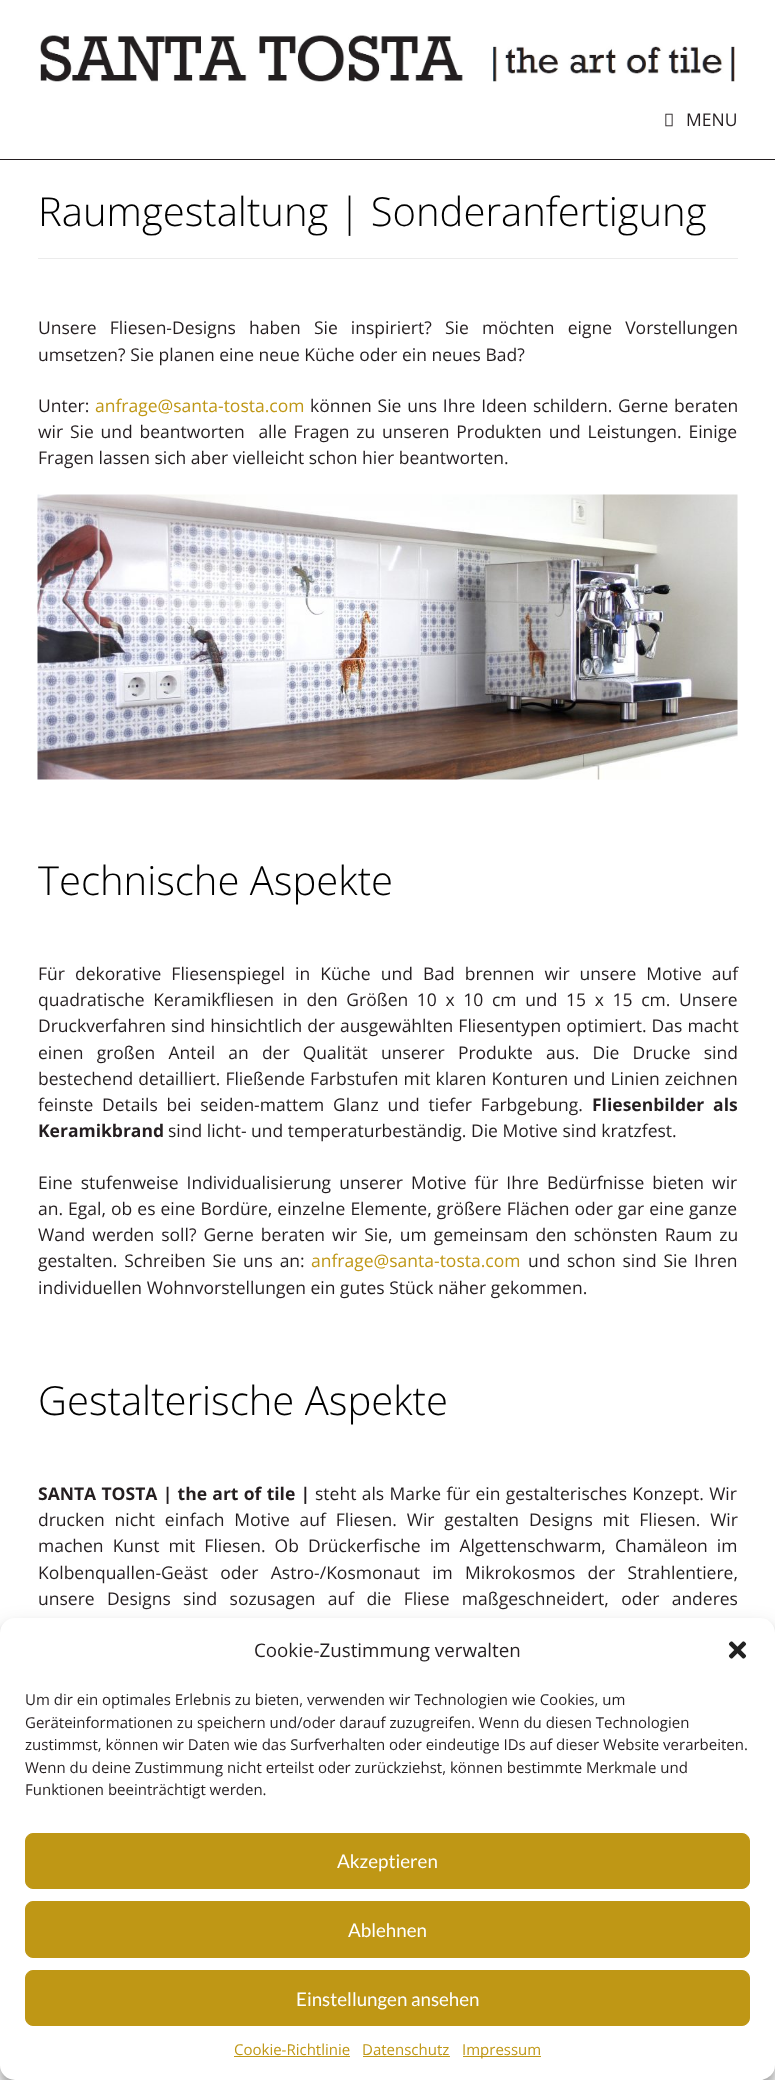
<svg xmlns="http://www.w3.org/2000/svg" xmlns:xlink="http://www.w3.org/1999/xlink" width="775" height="2080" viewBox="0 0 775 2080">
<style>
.cls-1{font:17.5px Open Sans;fill:#241e20}
.cls-2{font:300 40px Open Sans;fill:#000000}
.cls-3{font:17.5px Open Sans;fill:#bf9715}
.cls-4{font:bold 17.5px Open Sans;fill:#241e20}
.cls-5{font:18.75px Open Sans;fill:#241e20}
.cls-6{font:15px Open Sans;fill:#241e20}
.cls-7{font:18.75px Lato;fill:#ffffff}
.cls-8{font:15px Open Sans;fill:#bf9715}
</style>
<rect width="100%" height="100%" fill="#ffffff"/>
<image xlink:href="image0.png" x="40" y="35" width="695" height="47"/>
<image xlink:href="image1.png" x="665" y="113" width="8" height="14"/>
<rect fill="#241e20" x="0" y="159" width="775" height="1"/>
<path fill="#ebebeb" d="M38 258V259H738V193V258Z"/>
<image xlink:href="image2.png" x="37" y="494" width="701" height="286"/>
<rect fill="#000000" fill-opacity="0.23" filter="blur(4px)" x="0" y="1625" width="775" height="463" rx="15"/>
<rect fill="#000000" fill-opacity="0.19" filter="blur(12.5px)" x="0" y="1630" width="775" height="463" rx="15"/>
<rect fill="#ffffff" x="0" y="1618" width="775" height="462" rx="15"/>
<image xlink:href="image3.png" x="728" y="1641" width="19" height="18"/>
<rect fill="#bf9715" stroke="#bf9715" x="25.5" y="1833.5" width="724" height="55" rx="7.5"/>
<rect fill="#bf9715" stroke="#bf9715" x="25.5" y="1901.5" width="724" height="56" rx="7.5"/>
<rect fill="#bf9715" stroke="#bf9715" x="25.5" y="1970.5" width="724" height="55" rx="7.5"/>
<rect fill="#bf9715" x="234" y="2056" width="116" height="1"/>
<rect fill="#bf9715" x="363" y="2056" width="87" height="1"/>
<rect fill="#bf9715" x="463" y="2056" width="78" height="1"/>
<text class="cls-1" x="686" y="126">MENU</text>
<text class="cls-2" x="38" y="226">Raumgestaltung | Sonderanfertigung</text>
<text class="cls-1"><tspan x="38" y="334" word-spacing="8.6">Unsere Fliesen-Designs haben Sie inspiriert? Sie möchten eigne Vorstellungen</tspan><tspan x="38" y="361">umsetzen? Sie planen eine neue Küche oder ein neues Bad?</tspan></text>
<text class="cls-1" x="38" y="412">Unter:</text>
<text class="cls-3" x="95" y="412">anfrage@santa-tosta.com</text>
<text class="cls-1" x="310" y="412" word-spacing="1.25">können Sie uns Ihre Ideen schildern. Gerne beraten</text>
<text class="cls-1" xml:space="preserve"><tspan x="38" y="438" word-spacing="2.25">wir Sie und beantworten  alle Fragen zu unseren Produkten und Leistungen. Einige</tspan><tspan x="38" y="464">Fragen lassen sich aber vielleicht schon hier beantworten.</tspan></text>
<text class="cls-2" x="38" y="895">Technische Aspekte</text>
<text class="cls-1"><tspan x="38" y="980" word-spacing="5.5">Für dekorative Fliesenspiegel in Küche und Bad brennen wir unsere Motive auf</tspan><tspan x="38" y="1006" word-spacing="4.1">quadratische Keramikfliesen in den Größen 10 x 10 cm und 15 x 15 cm. Unsere</tspan><tspan x="38" y="1032" word-spacing="0.5">Druckverfahren sind hinsichtlich der ausgewählten Fliesentypen optimiert. Das macht</tspan><tspan x="38" y="1059" word-spacing="8.6">einen großen Anteil an der Qualität unserer Produkte aus. Die Drucke sind</tspan><tspan x="38" y="1085" word-spacing="0.5">bestechend detailliert. Fließende Farbstufen mit klaren Konturen und Linien zeichnen</tspan><tspan x="38" y="1111" word-spacing="4.25">feinste Details bei seiden-mattem Glanz und tiefer Farbgebung.</tspan></text>
<text class="cls-4" x="592" y="1111" word-spacing="4.25">Fliesenbilder als</text>
<text class="cls-4" x="38" y="1137">Keramikbrand</text>
<text class="cls-1" x="168" y="1137">sind licht- und temperaturbeständig. Die Motive sind kratzfest.</text>
<text class="cls-1"><tspan x="38" y="1189" word-spacing="3.5">Eine stufenweise Individualisierung unserer Motive für Ihre Bedürfnisse bieten wir</tspan><tspan x="38" y="1215" word-spacing="0.5">an. Egal, ob es eine Bordüre, einzelne Elemente, größere Flächen oder gar eine ganze</tspan><tspan x="38" y="1241" word-spacing="2.5">Wand werden soll? Gerne beraten wir Sie, um gemeinsam den schönsten Raum zu</tspan><tspan x="38" y="1267" word-spacing="2.25">gestalten. Schreiben Sie uns an:</tspan></text>
<text class="cls-3" x="311" y="1267">anfrage@santa-tosta.com</text>
<text class="cls-1" x="528" y="1267" word-spacing="2.25">und schon sind Sie Ihren</text>
<text class="cls-1" x="38" y="1294">individuellen Wohnvorstellungen ein gutes Stück näher gekommen.</text>
<text class="cls-2" x="38" y="1415">Gestalterische Aspekte</text>
<text class="cls-4" x="38" y="1500" word-spacing="0.75">SANTA TOSTA | the art of tile |</text>
<text class="cls-1" x="315" y="1500" word-spacing="0.75">steht als Marke für ein gestalterisches Konzept. Wir</text>
<text class="cls-1"><tspan x="38" y="1526" word-spacing="5.25">drucken nicht einfach Motive auf Fliesen. Wir gestalten Designs mit Fliesen. Wir</tspan><tspan x="38" y="1552" word-spacing="4.5">machen Kunst mit Fliesen. Ob Drückerfische im Algettenschwarm, Chamäleon im</tspan><tspan x="38" y="1579" word-spacing="7.75">Kolbenquallen-Geäst oder Astro-/Kosmonaut im Mikrokosmos der Strahlentiere,</tspan><tspan x="38" y="1605" word-spacing="7.75">unsere Designs sind sozusagen auf die Fliese maßgeschneidert, oder anderes</tspan></text>
<text class="cls-5" x="254" y="1657">Cookie-Zustimmung verwalten</text>
<text class="cls-6"><tspan x="25" y="1705">Um dir ein optimales Erlebnis zu bieten, verwenden wir Technologien wie Cookies, um</tspan><tspan x="25" y="1728">Geräteinformationen zu speichern und/oder darauf zuzugreifen. Wenn du diesen Technologien</tspan><tspan x="25" y="1750">zustimmst, können wir Daten wie das Surfverhalten oder eindeutige IDs auf dieser Website verarbeiten.</tspan><tspan x="25" y="1773">Wenn du deine Zustimmung nicht erteilst oder zurückziehst, können bestimmte Merkmale und</tspan><tspan x="25" y="1795">Funktionen beeinträchtigt werden.</tspan></text>
<text class="cls-7" x="337" y="1868">Akzeptieren</text>
<text class="cls-7" x="348" y="1937">Ablehnen</text>
<text class="cls-7" x="296" y="2006">Einstellungen ansehen</text>
<text class="cls-8" x="234" y="2055">Cookie-Richtlinie</text>
<text class="cls-8" x="362" y="2055">Datenschutz</text>
<text class="cls-8" x="462" y="2055">Impressum</text>
</svg>
